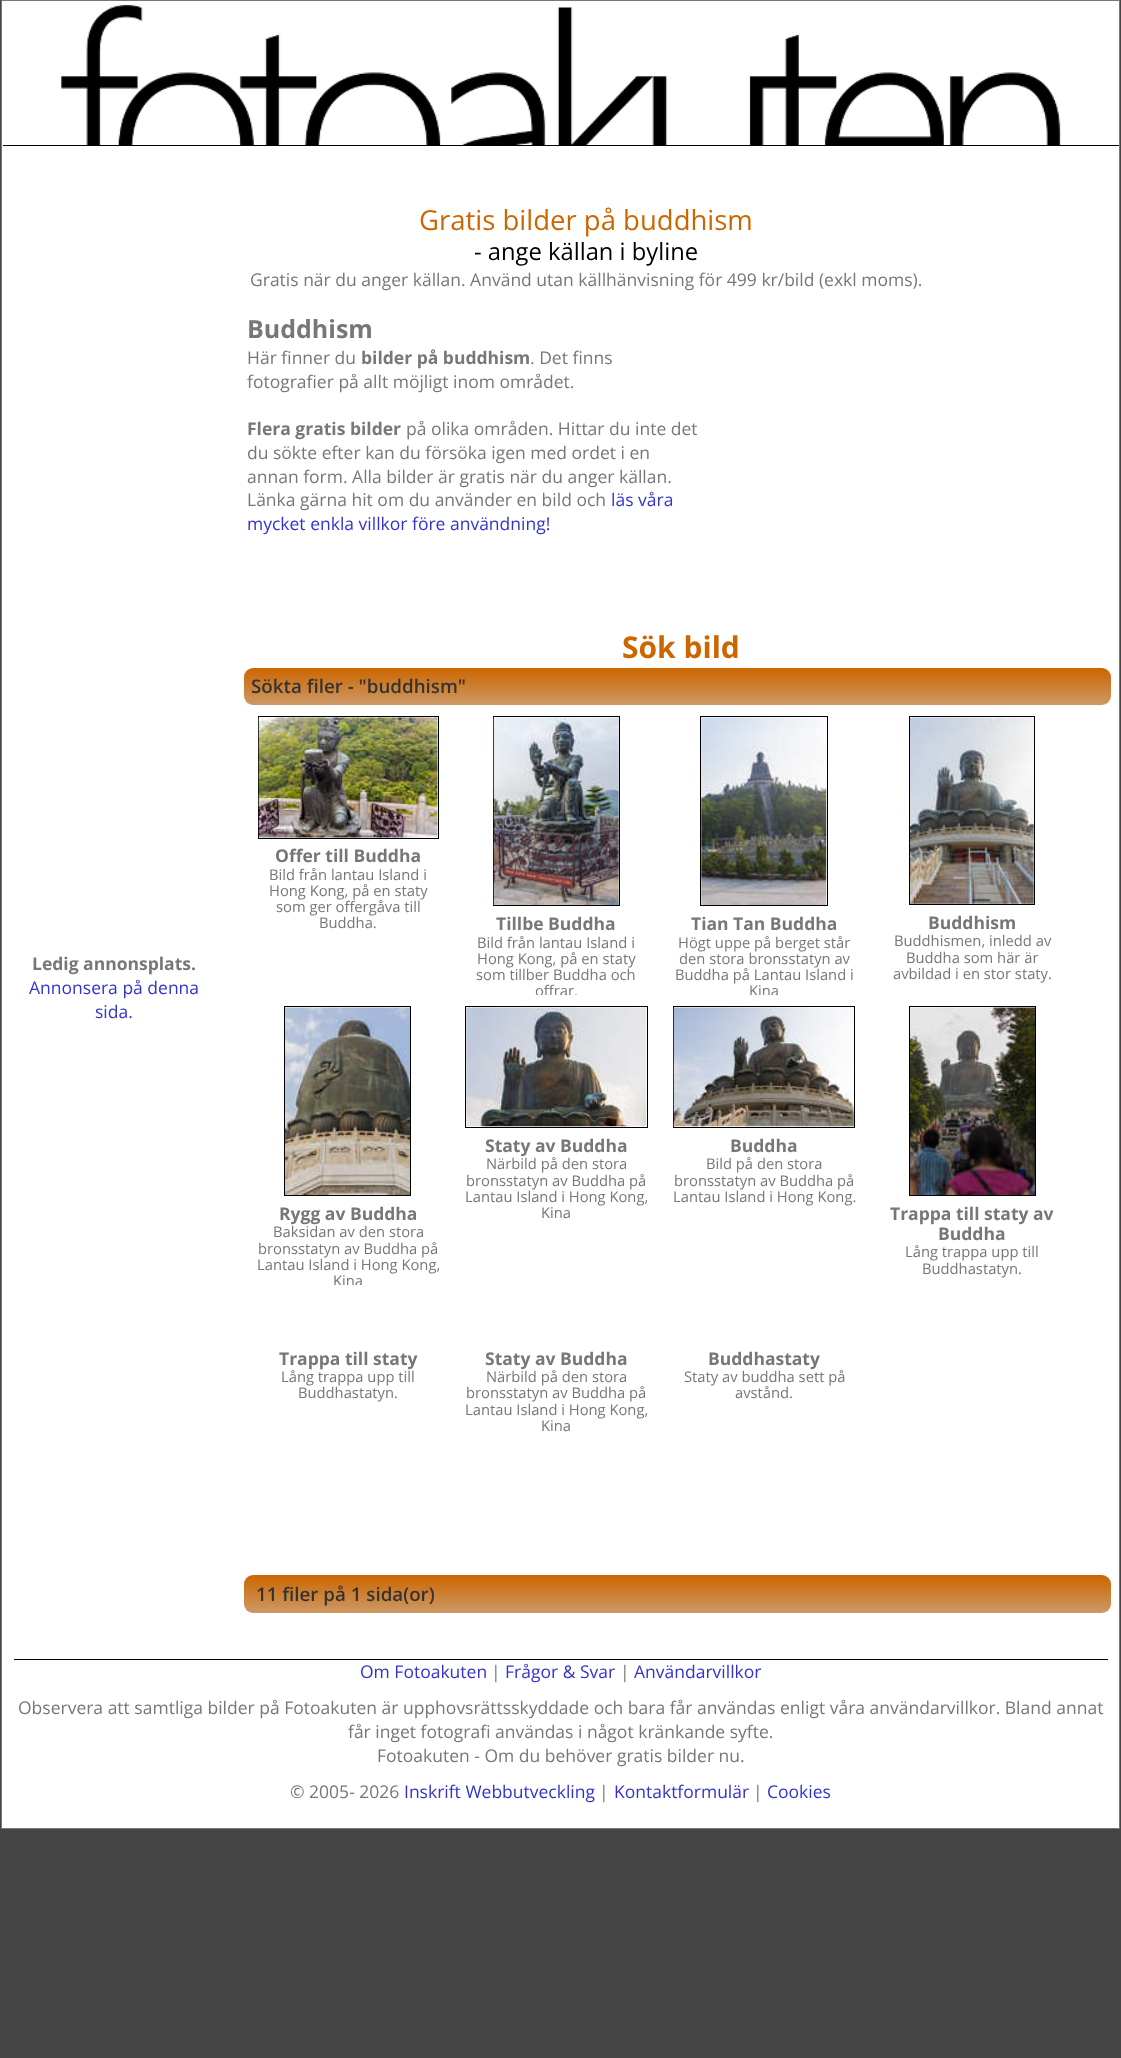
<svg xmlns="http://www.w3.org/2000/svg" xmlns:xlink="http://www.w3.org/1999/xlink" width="1121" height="2058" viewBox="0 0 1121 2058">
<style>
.cls-1{font:bold 17.5px Open Sans;fill:#777777}
.cls-2{font:17.5px Open Sans;fill:#3333cc}
.cls-3{font:27.5px Open Sans;fill:#cc6600}
.cls-4{font:23.75px Open Sans;fill:#000000}
.cls-5{font:17.5px Open Sans;fill:#777777}
.cls-6{font:bold 25px Open Sans;fill:#777777}
.cls-7{font:bold 30px Open Sans;fill:#cc6600}
.cls-8{font:600 18.75px Open Sans;fill:#333333}
.cls-9{font:14.75px Open Sans;fill:#777777}
</style>
<defs>
<linearGradient id="g1" gradientUnits="userSpaceOnUse" x1="678" y1="668" x2="678" y2="705"><stop offset="0" stop-color="#cc6600"/><stop offset="1" stop-color="#cc9966"/></linearGradient>
<linearGradient id="g2" gradientUnits="userSpaceOnUse" x1="678" y1="1575" x2="678" y2="1613"><stop offset="0" stop-color="#cc6600"/><stop offset="1" stop-color="#cc9966"/></linearGradient>
<clipPath id="clip1"><rect x="453" y="705" width="207" height="290"/></clipPath>
<clipPath id="clip2"><rect x="660" y="705" width="208" height="290"/></clipPath>
<clipPath id="clip3"><rect x="244" y="995" width="209" height="290"/></clipPath>
</defs>
<rect width="100%" height="100%" fill="#444444"/>
<rect fill="#ffffff" stroke="#777777" x="1.5" y="0.5" width="1118" height="1828"/>
<rect fill="#000000" x="3" y="145" width="1116" height="1"/>
<image xlink:href="image0.png" x="61" y="5" width="1000" height="140"/>
<rect fill="url(#g1)" x="244" y="668" width="867" height="37" rx="9"/>
<rect fill="none" stroke="#000000" x="258.5" y="716.5" width="180" height="122"/>
<image xlink:href="image1.png" x="258" y="717" width="180" height="121"/>
<rect fill="none" stroke="#000000" x="493.5" y="716.5" width="126" height="189"/>
<image xlink:href="image2.png" x="493" y="717" width="126" height="188"/>
<rect fill="none" stroke="#000000" x="700.5" y="716.5" width="127" height="189"/>
<image xlink:href="image3.png" x="701" y="717" width="126" height="188"/>
<rect fill="none" stroke="#000000" x="909.5" y="716.5" width="125" height="188"/>
<image xlink:href="image4.png" x="910" y="717" width="124" height="187"/>
<rect fill="none" stroke="#000000" x="465.5" y="1006.5" width="182" height="121"/>
<image xlink:href="image5.png" x="466" y="1007" width="181" height="120"/>
<rect fill="none" stroke="#000000" x="673.5" y="1006.5" width="181" height="121"/>
<image xlink:href="image6.png" x="673" y="1007" width="181" height="120"/>
<rect fill="none" stroke="#000000" x="284.5" y="1006.5" width="126" height="189"/>
<image xlink:href="image7.png" x="285" y="1007" width="125" height="188"/>
<rect fill="none" stroke="#000000" x="909.5" y="1006.5" width="126" height="189"/>
<image xlink:href="image8.png" x="910" y="1007" width="125" height="188"/>
<rect fill="url(#g2)" x="244" y="1575" width="867" height="38" rx="9"/>
<rect fill="#000000" x="14" y="1659" width="1094" height="1"/>
<text class="cls-1" x="32" y="970">Ledig annonsplats.</text>
<text class="cls-2" x="29" y="994">Annonsera på denna</text>
<text class="cls-2" x="95" y="1018">sida.</text>
<text class="cls-3" x="419" y="230">Gratis bilder på buddhism</text>
<text class="cls-4" x="474" y="260">- ange källan i byline</text>
<text class="cls-5" x="250" y="286">Gratis när du anger källan. Använd utan källhänvisning för 499 kr/bild (exkl moms).</text>
<text class="cls-6" x="247" y="338">Buddhism</text>
<text class="cls-5" x="247" y="364">Här finner du</text>
<text class="cls-1" x="361" y="364">bilder på buddhism</text>
<text class="cls-5" x="530" y="364">. Det finns</text>
<text class="cls-5" x="247" y="388">fotografier på allt möjligt inom området.</text>
<text class="cls-1" x="247" y="435">Flera gratis bilder</text>
<text class="cls-5" x="406" y="435">på olika områden. Hittar du inte det</text>
<text class="cls-5"><tspan x="247" y="459">du sökte efter kan du försöka igen med ordet i en</tspan><tspan x="247" y="483">annan form. Alla bilder är gratis när du anger källan.</tspan><tspan x="247" y="506">Länka gärna hit om du använder en bild och</tspan></text>
<text class="cls-2" x="611" y="506">läs våra</text>
<text class="cls-2" x="247" y="530">mycket enkla villkor före användning!</text>
<text class="cls-7" x="622" y="658">Sök bild</text>
<text class="cls-8" x="251" y="693">Sökta filer - "buddhism"</text>
<text class="cls-1" x="275" y="862">Offer till Buddha</text>
<text class="cls-9"><tspan x="269" y="880">Bild från lantau Island i</tspan><tspan x="269" y="896">Hong Kong, på en staty</tspan></text>
<text class="cls-9" x="276" y="912">som ger offergåva till</text>
<text class="cls-9" x="319" y="928">Buddha.</text>
<text class="cls-1" x="496" y="930">Tillbe Buddha</text>
<text class="cls-9"><tspan x="477" y="948">Bild från lantau Island i</tspan><tspan x="477" y="964">Hong Kong, på en staty</tspan></text>
<text class="cls-9" x="476" y="980">som tillber Buddha och</text>
<g clip-path="url(#clip1)">
<text class="cls-9" x="535" y="996">offrar.</text>
</g>
<text class="cls-1" x="691" y="930">Tian Tan Buddha</text>
<text class="cls-9" x="678" y="948">Högt uppe på berget står</text>
<text class="cls-9" x="679" y="964">den stora bronsstatyn av</text>
<text class="cls-9" x="675" y="980">Buddha på Lantau Island i</text>
<g clip-path="url(#clip2)">
<text class="cls-9" x="749" y="996">Kina</text>
</g>
<text class="cls-1" x="928" y="929">Buddhism</text>
<text class="cls-9" x="894" y="946">Buddhismen, inledd av</text>
<text class="cls-9" x="906" y="963">Buddha som här är</text>
<text class="cls-9" x="893" y="979">avbildad i en stor staty.</text>
<text class="cls-1" x="485" y="1152">Staty av Buddha</text>
<text class="cls-9" x="486" y="1169">Närbild på den stora</text>
<text class="cls-9" x="466" y="1186">bronsstatyn av Buddha på</text>
<text class="cls-9" x="465" y="1202">Lantau Island i Hong Kong,</text>
<text class="cls-9" x="541" y="1218">Kina</text>
<text class="cls-1" x="730" y="1152">Buddha</text>
<text class="cls-9" x="706" y="1169">Bild på den stora</text>
<text class="cls-9" x="674" y="1186">bronsstatyn av Buddha på</text>
<text class="cls-9" x="673" y="1202">Lantau Island i Hong Kong.</text>
<text class="cls-1" x="279" y="1220">Rygg av Buddha</text>
<text class="cls-9" x="273" y="1237">Baksidan av den stora</text>
<text class="cls-9" x="258" y="1254">bronsstatyn av Buddha på</text>
<text class="cls-9" x="257" y="1270">Lantau Island i Hong Kong,</text>
<g clip-path="url(#clip3)">
<text class="cls-9" x="333" y="1286">Kina</text>
</g>
<text class="cls-1" x="890" y="1220">Trappa till staty av</text>
<text class="cls-1" x="938" y="1240">Buddha</text>
<text class="cls-9" x="905" y="1257">Lång trappa upp till</text>
<text class="cls-9" x="922" y="1274">Buddhastatyn.</text>
<text class="cls-1" x="279" y="1365">Trappa till staty</text>
<text class="cls-9" x="281" y="1382">Lång trappa upp till</text>
<text class="cls-9" x="298" y="1398">Buddhastatyn.</text>
<text class="cls-1" x="485" y="1365">Staty av Buddha</text>
<text class="cls-9" x="486" y="1382">Närbild på den stora</text>
<text class="cls-9" x="466" y="1398">bronsstatyn av Buddha på</text>
<text class="cls-9" x="465" y="1415">Lantau Island i Hong Kong,</text>
<text class="cls-9" x="541" y="1431">Kina</text>
<text class="cls-1" x="708" y="1365">Buddhastaty</text>
<text class="cls-9" x="684" y="1382">Staty av buddha sett på</text>
<text class="cls-9" x="735" y="1398">avstånd.</text>
<text class="cls-8" x="256" y="1601">11 filer på 1 sida(or)</text>
<text class="cls-2" x="360" y="1678">Om Fotoakuten</text>
<text class="cls-5" x="491" y="1678">|</text>
<text class="cls-2" x="505" y="1678">Frågor &amp; Svar</text>
<text class="cls-5" x="620" y="1678">|</text>
<text class="cls-2" x="634" y="1678">Användarvillkor</text>
<text class="cls-5" x="18" y="1714">Observera att samtliga bilder på Fotoakuten är upphovsrättsskyddade och bara får användas enligt våra användarvillkor. Bland annat</text>
<text class="cls-5" x="348" y="1738">får inget fotografi användas i något kränkande syfte.</text>
<text class="cls-5" x="377" y="1762">Fotoakuten - Om du behöver gratis bilder nu.</text>
<text class="cls-5" x="290" y="1798">© 2005- 2026</text>
<text class="cls-2" x="404" y="1798">Inskrift Webbutveckling</text>
<text class="cls-5" x="599" y="1798">|</text>
<text class="cls-2" x="614" y="1798">Kontaktformulär</text>
<text class="cls-5" x="753" y="1798">|</text>
<text class="cls-2" x="767" y="1798">Cookies</text>
</svg>
